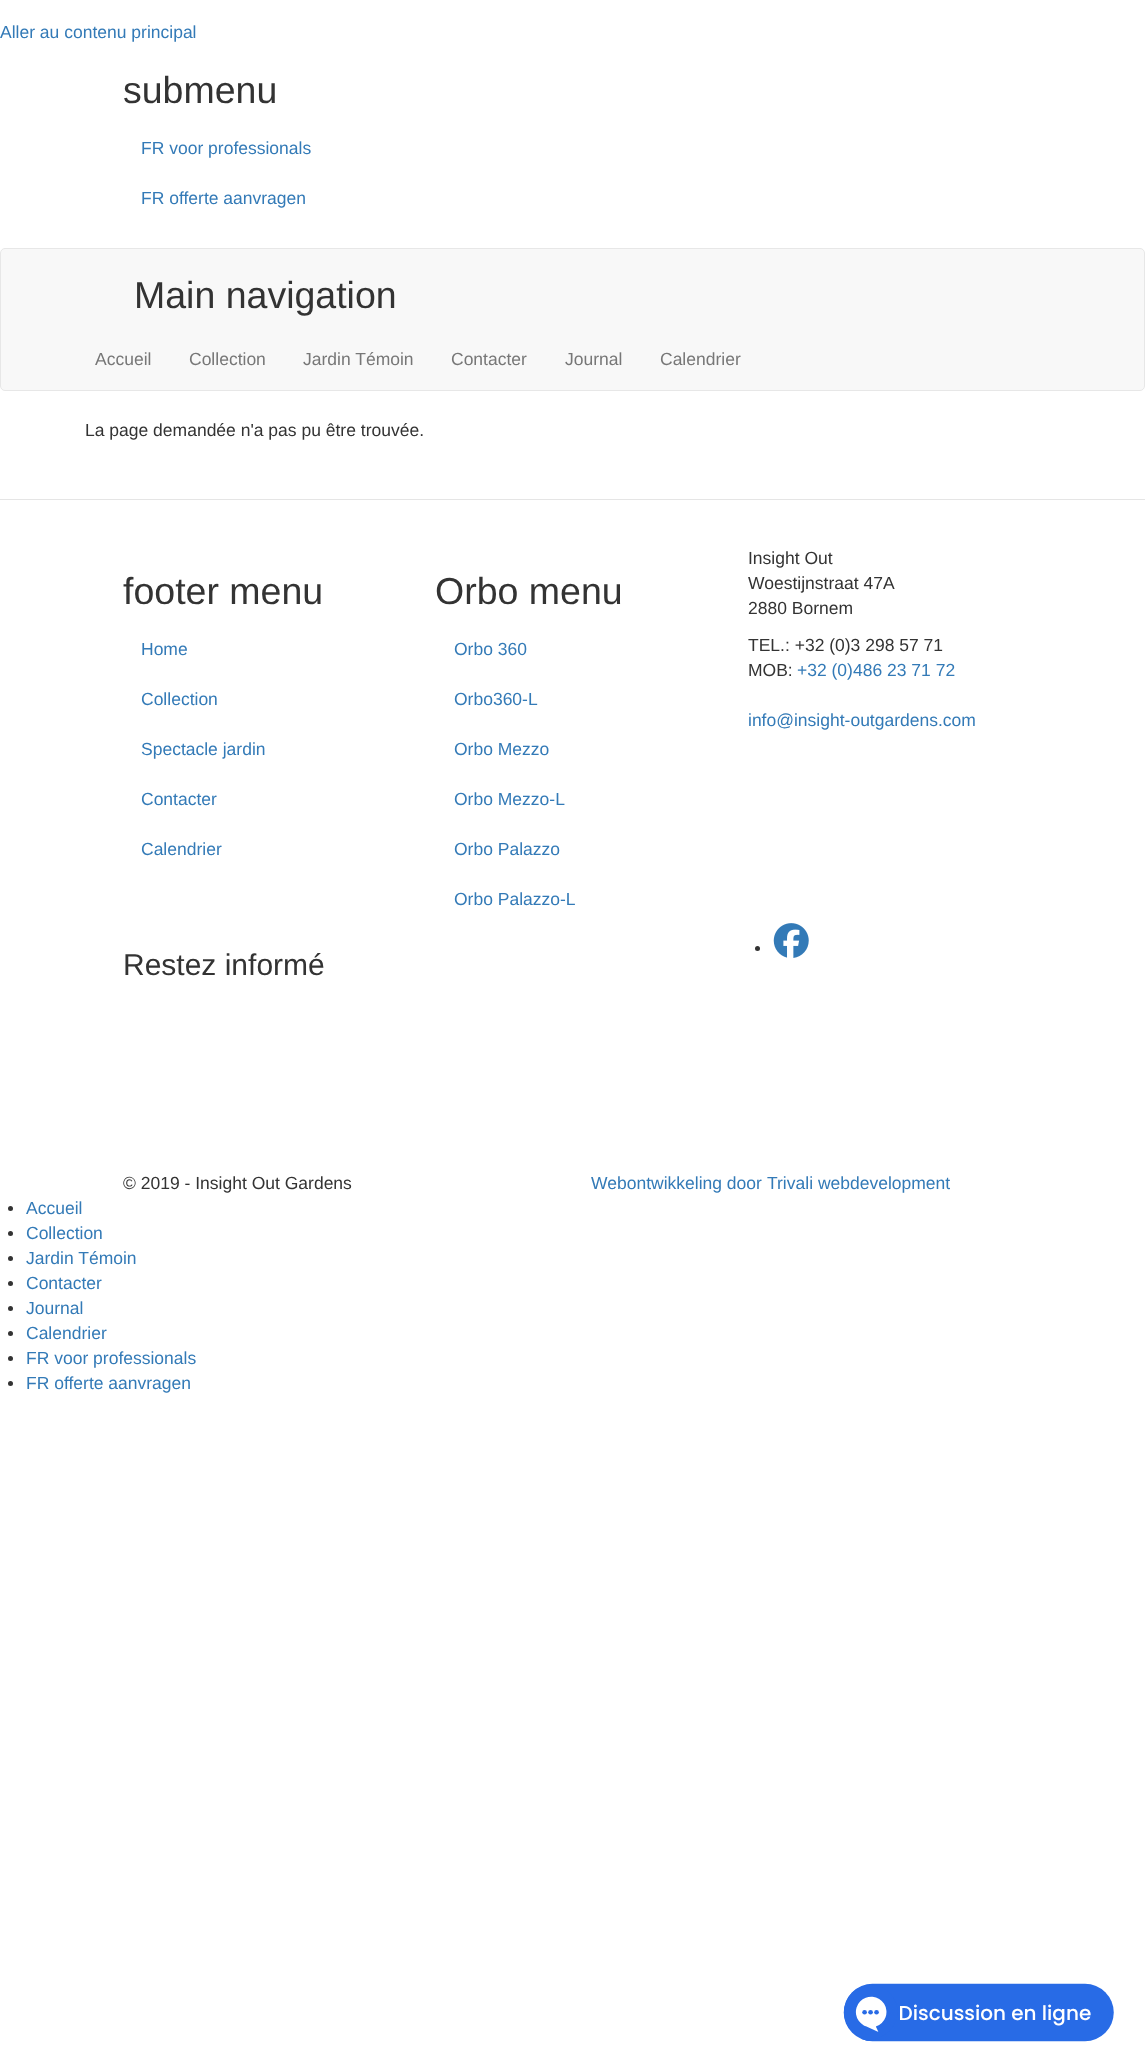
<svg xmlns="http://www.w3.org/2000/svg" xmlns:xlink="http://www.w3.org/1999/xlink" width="1145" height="2072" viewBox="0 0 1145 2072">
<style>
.cls-1{font:17.5px Liberation Sans;fill:#337ab7}
.cls-2{font:37.5px Liberation Sans;fill:#333333}
.cls-3{font:17.5px Liberation Sans;fill:#777777}
.cls-4{font:17.5px Liberation Sans;fill:#333333}
.cls-5{font:30px Liberation Sans;fill:#333333}
</style>
<rect width="100%" height="100%" fill="#ffffff"/>
<rect fill="#f8f8f8" stroke="#e7e7e7" x="0.5" y="248.5" width="1144" height="142" rx="4.5"/>
<rect fill="#e5e5e5" x="0" y="499" width="1145" height="1"/>
<circle fill="#333333" cx="757.5" cy="948.5" r="2.5"/>
<image xlink:href="image0.png" x="773" y="923" width="36" height="35"/>
<circle fill="#333333" cx="10.5" cy="1208.5" r="2.5"/>
<circle fill="#333333" cx="10.5" cy="1233.5" r="2.5"/>
<circle fill="#333333" cx="10.5" cy="1258.5" r="2.5"/>
<circle fill="#333333" cx="10.5" cy="1283.5" r="2.5"/>
<circle fill="#333333" cx="10.5" cy="1308.5" r="2.5"/>
<circle fill="#333333" cx="10.5" cy="1333.5" r="2.5"/>
<circle fill="#333333" cx="10.5" cy="1358.5" r="2.5"/>
<circle fill="#333333" cx="10.5" cy="1383.5" r="2.5"/>
<image xlink:href="image1.png" x="843" y="1983" width="271" height="59"/>
<text class="cls-1" x="0" y="38">Aller au contenu principal</text>
<text class="cls-2" x="123" y="103">submenu</text>
<text class="cls-1" x="141" y="154">FR voor professionals</text>
<text class="cls-1" x="141" y="204">FR offerte aanvragen</text>
<text class="cls-2" x="134" y="308">Main navigation</text>
<text class="cls-3" x="95" y="365">Accueil</text>
<text class="cls-3" x="189" y="365">Collection</text>
<text class="cls-3" x="303" y="365">Jardin Témoin</text>
<text class="cls-3" x="451" y="365">Contacter</text>
<text class="cls-3" x="565" y="365">Journal</text>
<text class="cls-3" x="660" y="365">Calendrier</text>
<text class="cls-4" x="85" y="436">La page demandée n'a pas pu être trouvée.</text>
<text class="cls-2" x="123" y="604">footer menu</text>
<text class="cls-1" x="141" y="655">Home</text>
<text class="cls-1" x="141" y="705">Collection</text>
<text class="cls-1" x="141" y="755">Spectacle jardin</text>
<text class="cls-1" x="141" y="805">Contacter</text>
<text class="cls-1" x="141" y="855">Calendrier</text>
<text class="cls-2" x="435" y="604">Orbo menu</text>
<text class="cls-1" x="454" y="655">Orbo 360</text>
<text class="cls-1" x="454" y="705">Orbo360-L</text>
<text class="cls-1" x="454" y="755">Orbo Mezzo</text>
<text class="cls-1" x="454" y="805">Orbo Mezzo-L</text>
<text class="cls-1" x="454" y="855">Orbo Palazzo</text>
<text class="cls-1" x="454" y="905">Orbo Palazzo-L</text>
<text class="cls-4"><tspan x="748" y="564">Insight Out</tspan><tspan x="748" y="589">Woestijnstraat 47A</tspan><tspan x="748" y="614">2880 Bornem</tspan></text>
<text class="cls-4"><tspan x="748" y="651">TEL.: +32 (0)3 298 57 71</tspan><tspan x="748" y="676">MOB:</tspan></text>
<text class="cls-1" x="797" y="676">+32 (0)486 23 71 72</text>
<text class="cls-1" x="748" y="726">info@insight-outgardens.com</text>
<text class="cls-5" x="123" y="975">Restez informé</text>
<text class="cls-4" x="123" y="1189">© 2019 - Insight Out Gardens</text>
<text class="cls-1" x="591" y="1189">Webontwikkeling door</text>
<text class="cls-1" x="767" y="1189">Trivali webdevelopment</text>
<text class="cls-1"><tspan x="26" y="1214">Accueil</tspan><tspan x="26" y="1239">Collection</tspan><tspan x="26" y="1264">Jardin Témoin</tspan><tspan x="26" y="1289">Contacter</tspan><tspan x="26" y="1314">Journal</tspan><tspan x="26" y="1339">Calendrier</tspan><tspan x="26" y="1364">FR voor professionals</tspan><tspan x="26" y="1389">FR offerte aanvragen</tspan></text>
</svg>
